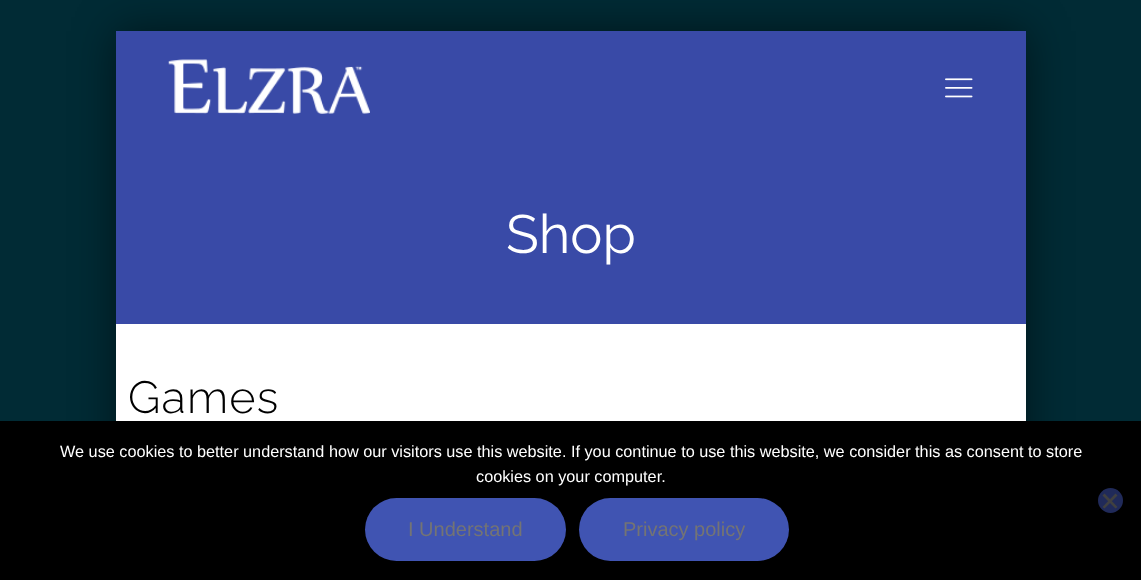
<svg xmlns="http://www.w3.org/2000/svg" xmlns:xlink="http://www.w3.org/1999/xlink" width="1141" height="580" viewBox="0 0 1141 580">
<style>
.cls-1{font:54px Raleway;fill:#ffffff}
.cls-2{font:300 45px Raleway;letter-spacing:1.25px;fill:#000000}
.cls-3{font:16.25px Liberation Sans;fill:#ffffff}
.cls-4{font:20px Liberation Sans;fill:#747474}
</style>
<rect width="100%" height="100%" fill="#012b35"/>
<rect fill="#000000" fill-opacity="0.5" filter="blur(22px)" x="116" y="31" width="910" height="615"/>
<rect fill="#ffffff" x="116" y="324" width="910" height="97"/>
<rect fill="#394aa7" x="116" y="31" width="910" height="293"/>
<image xlink:href="image0.png" x="168" y="59" width="202" height="55"/>
<image xlink:href="image1.png" x="945" y="78" width="28" height="20"/>
<rect fill="#000000" x="0" y="421" width="1141" height="159"/>
<circle fill="#202a59" cx="1110.5" cy="500.5" r="12.5"/>
<path fill="#404040" d="M1115.5 493.5L1117.5 495.5L1104.5 508.5L1102.5 507Z"/>
<path fill="#404040" d="M1102.5 495.5L1104.5 493.5L1117.5 507L1115.5 508.5Z"/>
<rect fill="#4054b2" x="365" y="498" width="201" height="63" rx="31.5"/>
<rect fill="#4054b2" x="579" y="498" width="210" height="63" rx="31.5"/>
<text class="cls-1" x="506" y="253">Shop</text>
<text class="cls-2" x="128" y="413">Games</text>
<text class="cls-3" x="60" y="457">We use cookies to better understand how our visitors use this website. If you continue to use this website, we consider this as consent to store</text>
<text class="cls-3" x="476" y="482">cookies on your computer.</text>
<text class="cls-4" x="408" y="536">I Understand</text>
<text class="cls-4" x="623" y="536">Privacy policy</text>
</svg>
